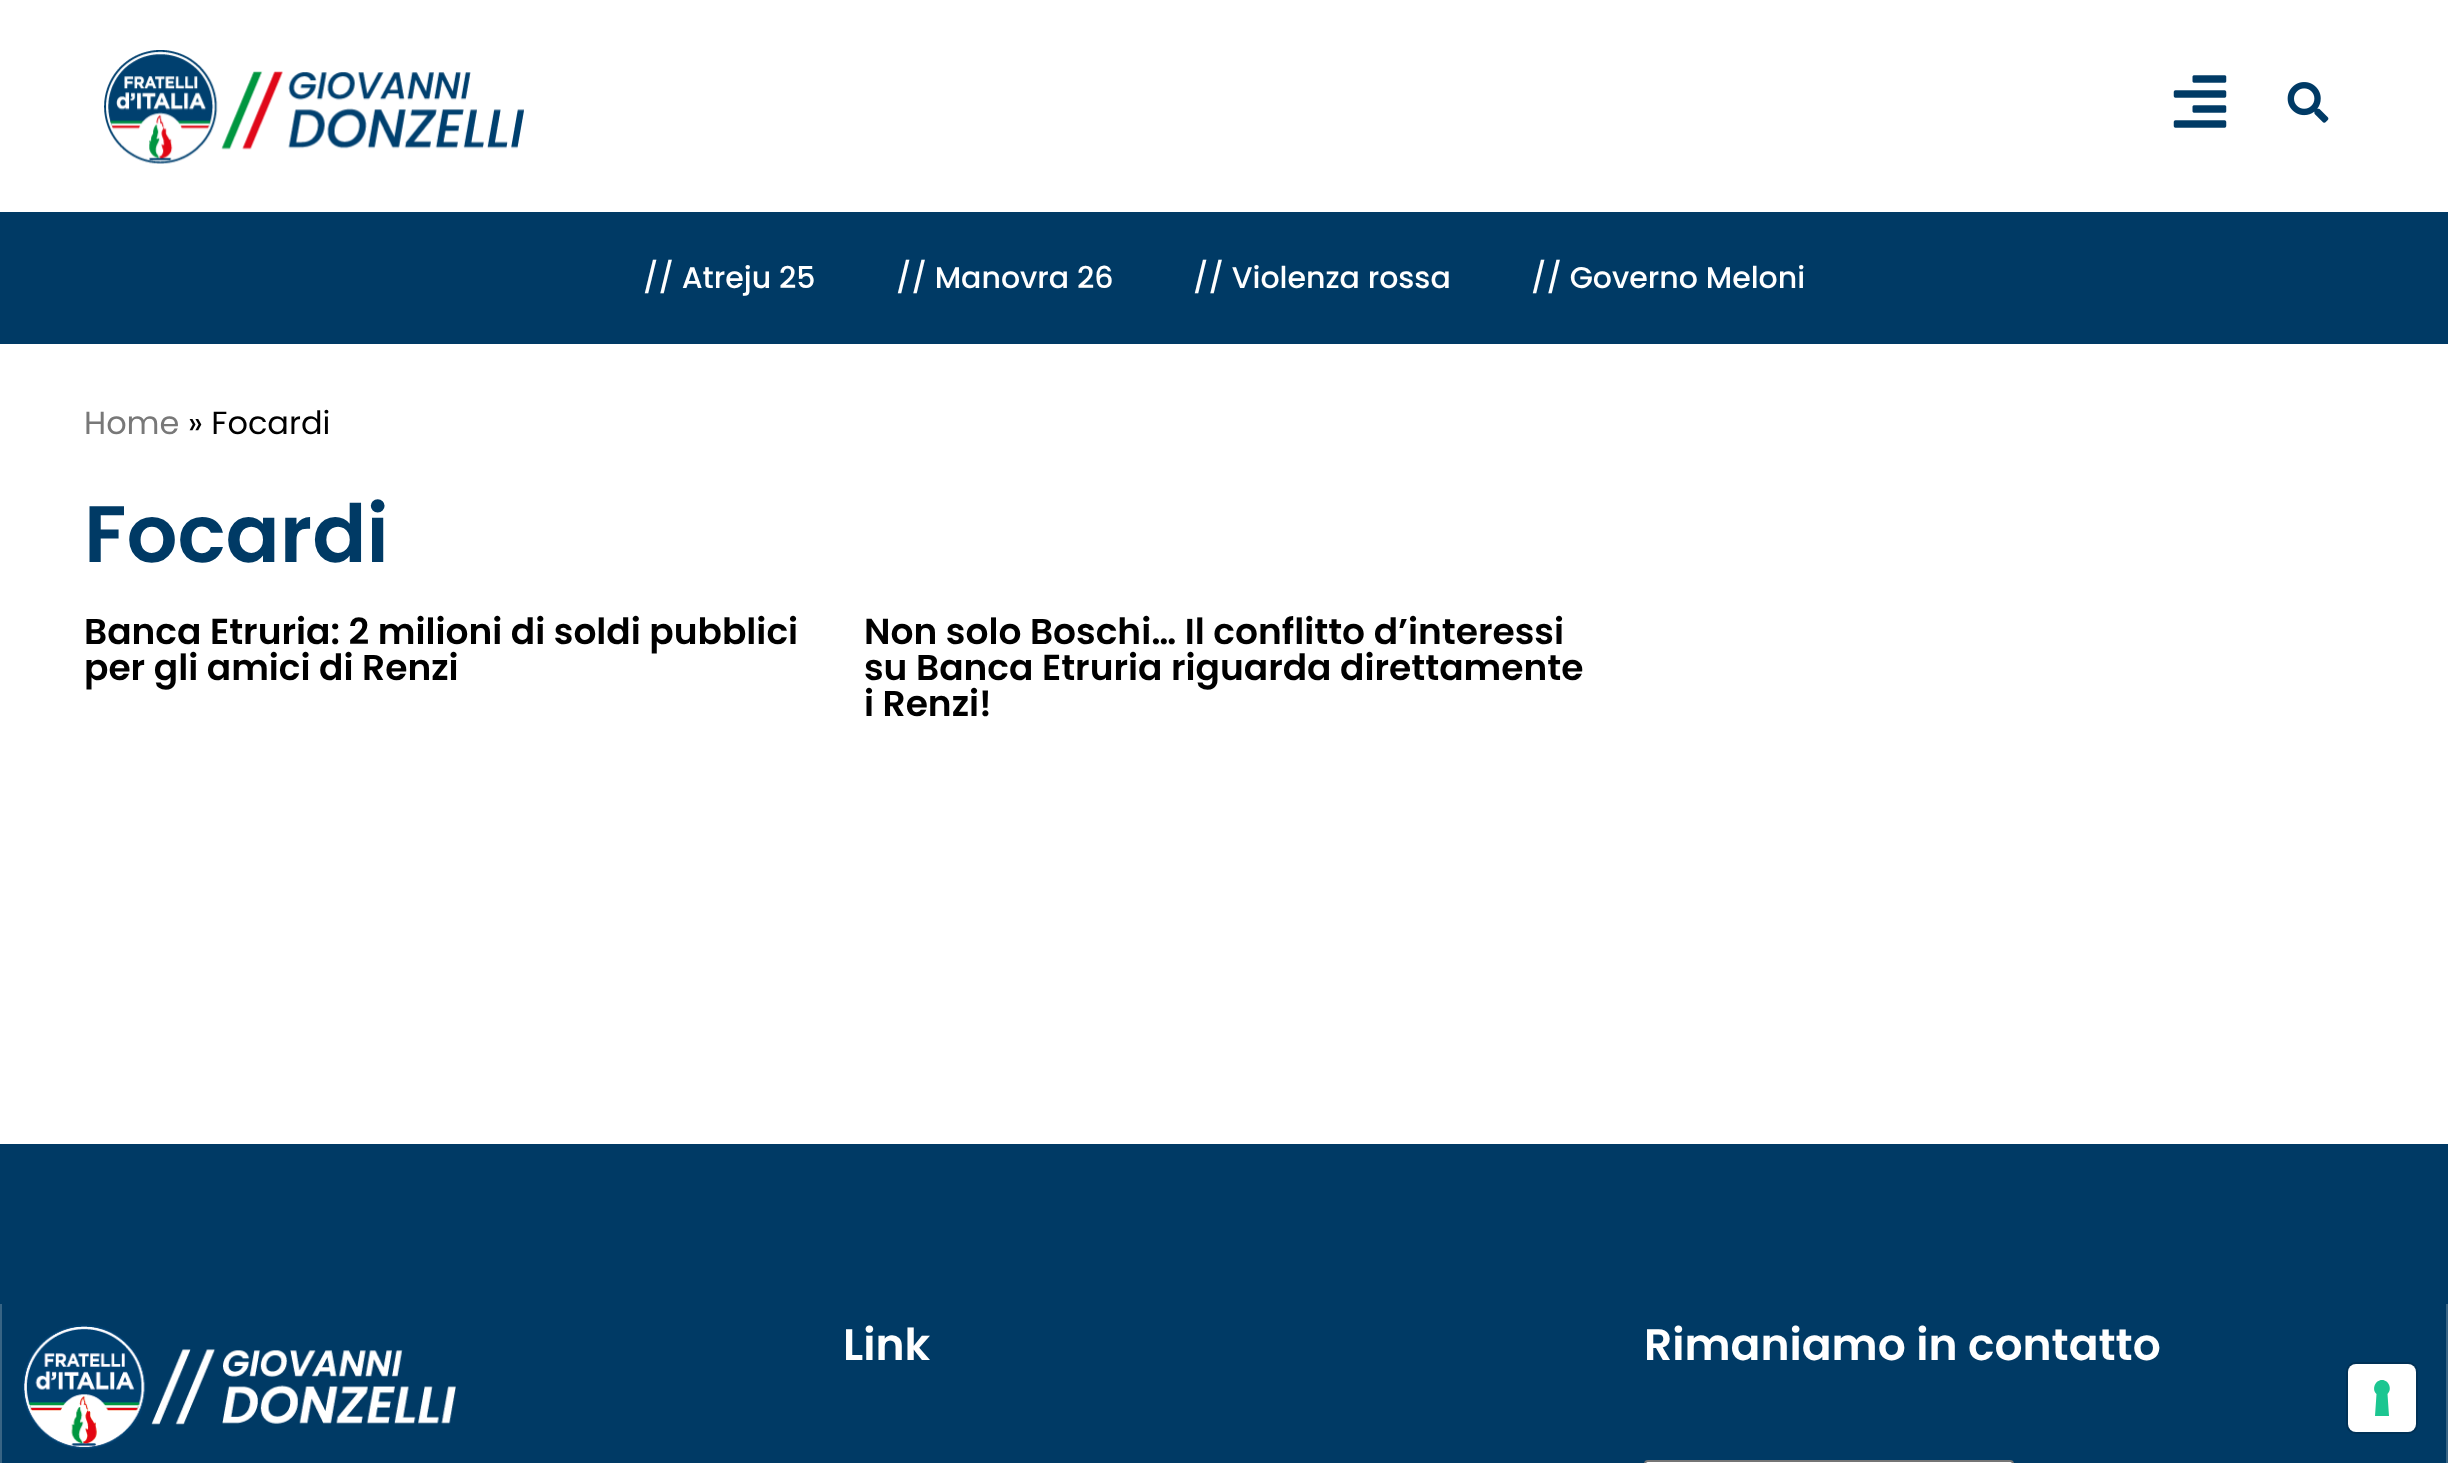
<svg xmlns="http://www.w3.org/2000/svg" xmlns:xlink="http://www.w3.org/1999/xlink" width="2448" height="1463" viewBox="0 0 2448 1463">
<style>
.cls-1{font:500 30px Poppins;fill:#ffffff}
.cls-2{font:32px Poppins;fill:#787878}
.cls-3{font:32px Poppins;fill:#000000}
.cls-4{font:600 80px Poppins;fill:#003a65}
.cls-5{font:600 36px Poppins;fill:#000000}
.cls-6{font:600 44px Poppins;fill:#ffffff}
</style>
<rect width="100%" height="100%" fill="#ffffff"/>
<image xlink:href="image0.png" x="104" y="50" width="420" height="114"/>
<image xlink:href="image1.png" x="2173" y="75" width="54" height="53"/>
<image xlink:href="image2.png" x="2287" y="82" width="42" height="41"/>
<rect fill="#003a65" x="0" y="212" width="2448" height="132"/>
<rect fill="#003a65" x="0" y="1144" width="2448" height="319"/>
<rect fill="#386484" x="2446" y="1304" width="2" height="159"/>
<rect fill="#386484" x="0" y="1304" width="2" height="159"/>
<image xlink:href="image3.png" x="22" y="1324" width="434" height="125"/>
<rect fill="#ffffff" stroke="#767676" stroke-width="2" x="1645" y="1461" width="368" height="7" rx="3"/>
<rect fill="none" stroke="#003156" stroke-width="2" x="2347" y="1363" width="70" height="70" rx="9"/>
<rect fill="#ffffff" x="2348" y="1364" width="68" height="68" rx="8"/>
<path fill="#1cc691" fill-rule="evenodd" d="M2382 1380C2389 1380 2392.5 1389.5 2387.5 1394L2389 1416H2375L2376.5 1394C2371.5 1389.5 2375 1380 2382 1380Z"/>
<text class="cls-1" x="643" y="288">// Atreju 25</text>
<text class="cls-1" x="896" y="288">// Manovra 26</text>
<text class="cls-1" x="1193" y="288">// Violenza rossa</text>
<text class="cls-1" x="1531" y="288">// Governo Meloni</text>
<text class="cls-2" x="84" y="434">Home</text>
<text class="cls-3" x="188" y="434">» Focardi</text>
<text class="cls-4" x="84" y="562">Focardi</text>
<text class="cls-5"><tspan x="84" y="644">Banca Etruria: 2 milioni di soldi pubblici</tspan><tspan x="84" y="680">per gli amici di Renzi</tspan></text>
<text class="cls-5"><tspan x="864" y="644">Non solo Boschi… Il conflitto d’interessi</tspan><tspan x="864" y="680">su Banca Etruria riguarda direttamente</tspan><tspan x="864" y="716">i Renzi!</tspan></text>
<text class="cls-6" x="843" y="1360">Link</text>
<text class="cls-6" x="1644" y="1360">Rimaniamo in contatto</text>
</svg>
